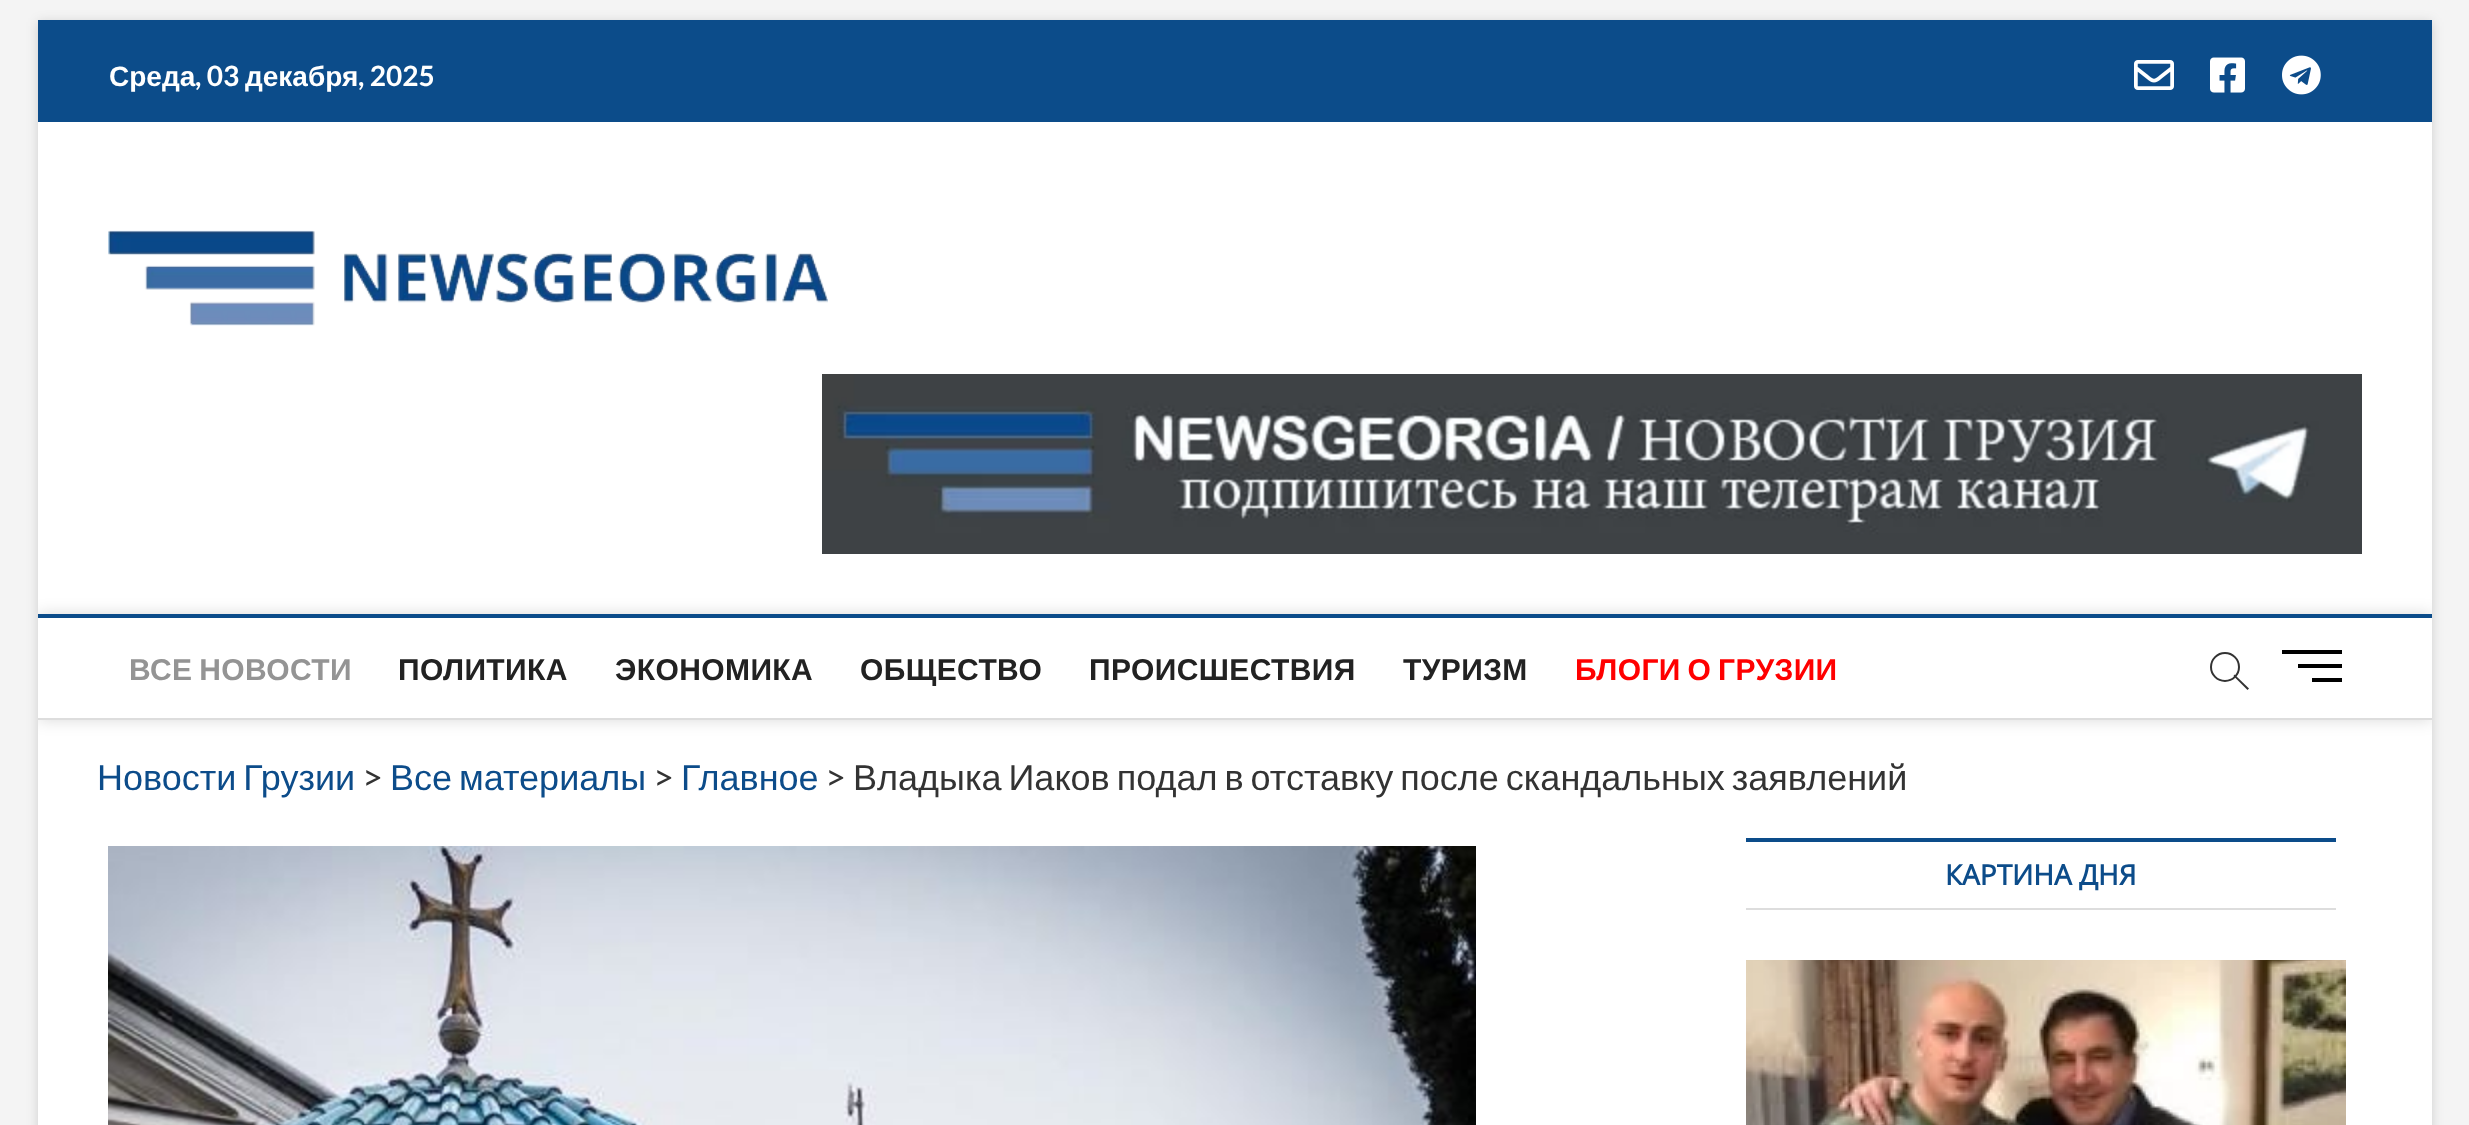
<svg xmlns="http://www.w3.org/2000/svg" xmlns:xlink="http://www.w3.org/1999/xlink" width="2469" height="1125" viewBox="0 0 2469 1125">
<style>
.cls-1{font:bold 28px Liberation Sans;fill:#ffffff}
.cls-2{font:bold 28px Lato;fill:#ffffff}
.cls-3{font:bold 30px Liberation Sans;letter-spacing:0.4px;fill:#949494}
.cls-4{font:bold 30px Liberation Sans;letter-spacing:0.4px;fill:#222222}
.cls-5{font:bold 30px Liberation Sans;letter-spacing:0.4px;fill:#ff0000}
.cls-6{font:36px Liberation Sans;fill:#0c4c8a}
.cls-7{font:36px Lato;fill:#333333}
.cls-8{font:36px Liberation Sans;fill:#333333}
.cls-9{font:bold 28px Open Sans;fill:#0c4c8a}
</style>
<defs>
<clipPath id="clip1"><rect x="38" y="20" width="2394" height="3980"/></clipPath>
<clipPath id="clip2"><path d="M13 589H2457V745H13ZM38 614H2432V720H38Z" clip-rule="evenodd"/></clipPath>
</defs>
<rect width="100%" height="100%" fill="#f4f4f4"/>
<rect fill="#000000" fill-opacity="0.15" filter="blur(6px)" x="38" y="22" width="2394" height="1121"/>
<rect fill="#ffffff" x="38" y="122" width="2394" height="1003"/>
<rect fill="#0c4c8a" x="38" y="20" width="2394" height="102"/>
<image xlink:href="image0.png" x="2134" y="60" width="40" height="30"/>
<image xlink:href="image1.png" x="2210" y="57" width="35" height="36"/>
<image xlink:href="image2.png" x="2282" y="55" width="39" height="40"/>
<image xlink:href="image3.png" x="108" y="230" width="720" height="96"/>
<image xlink:href="image4.png" x="822" y="374" width="1540" height="180"/>
<g clip-path="url(#clip1)">
<g clip-path="url(#clip2)">
<rect fill="#000000" fill-opacity="0.15" filter="blur(8px)" x="38" y="614" width="2394" height="106"/>
</g>
</g>
<rect fill="#0c4c8a" x="38" y="614" width="2394" height="4"/>
<rect fill="#dddddd" x="38" y="718" width="2394" height="2"/>
<circle fill="none" stroke="#333333" stroke-width="2" cx="2225" cy="667" r="14"/>
<path fill="#333333" d="M2233.5 676L2234.5 674.5L2249 688.5L2247.5 690Z"/>
<rect fill="#000000" x="2298" y="664" width="44" height="4"/>
<rect fill="#000000" x="2282" y="650" width="60" height="4"/>
<rect fill="#000000" x="2312" y="678" width="30" height="4"/>
<image xlink:href="image5.png" x="108" y="846" width="1368" height="279"/>
<rect fill="#0c4c8a" x="1746" y="838" width="590" height="4"/>
<rect fill="#dddddd" x="1746" y="908" width="590" height="2"/>
<image xlink:href="image6.png" x="1746" y="960" width="600" height="165"/>
<text class="cls-1" x="109" y="86">Среда</text>
<text class="cls-2" x="195" y="86">, 03</text>
<text class="cls-1" x="245" y="86">декабря</text>
<text class="cls-2" x="358" y="86">, 2025</text>
<text class="cls-3" x="129" y="680" word-spacing="-2">ВСЕ НОВОСТИ</text>
<text class="cls-4" x="398" y="680">ПОЛИТИКА</text>
<text class="cls-4" x="615" y="680">ЭКОНОМИКА</text>
<text class="cls-4" x="860" y="680">ОБЩЕСТВО</text>
<text class="cls-4" x="1089" y="680">ПРОИСШЕСТВИЯ</text>
<text class="cls-4" x="1403" y="680">ТУРИЗМ</text>
<text class="cls-5" x="1575" y="680" word-spacing="-2">БЛОГИ О ГРУЗИИ</text>
<text class="cls-6" x="97" y="790" word-spacing="-3">Новости Грузии</text>
<text class="cls-7" x="362" y="790">&gt;</text>
<text class="cls-6" x="390" y="790" word-spacing="-3">Все материалы</text>
<text class="cls-7" x="653" y="790">&gt;</text>
<text class="cls-6" x="681" y="790">Главное</text>
<text class="cls-7" x="825" y="790">&gt;</text>
<text class="cls-8" x="853" y="790" word-spacing="-3">Владыка Иаков подал в отставку после скандальных заявлений</text>
<text class="cls-9" x="1945" y="885">КАРТИНА ДНЯ</text>
</svg>
